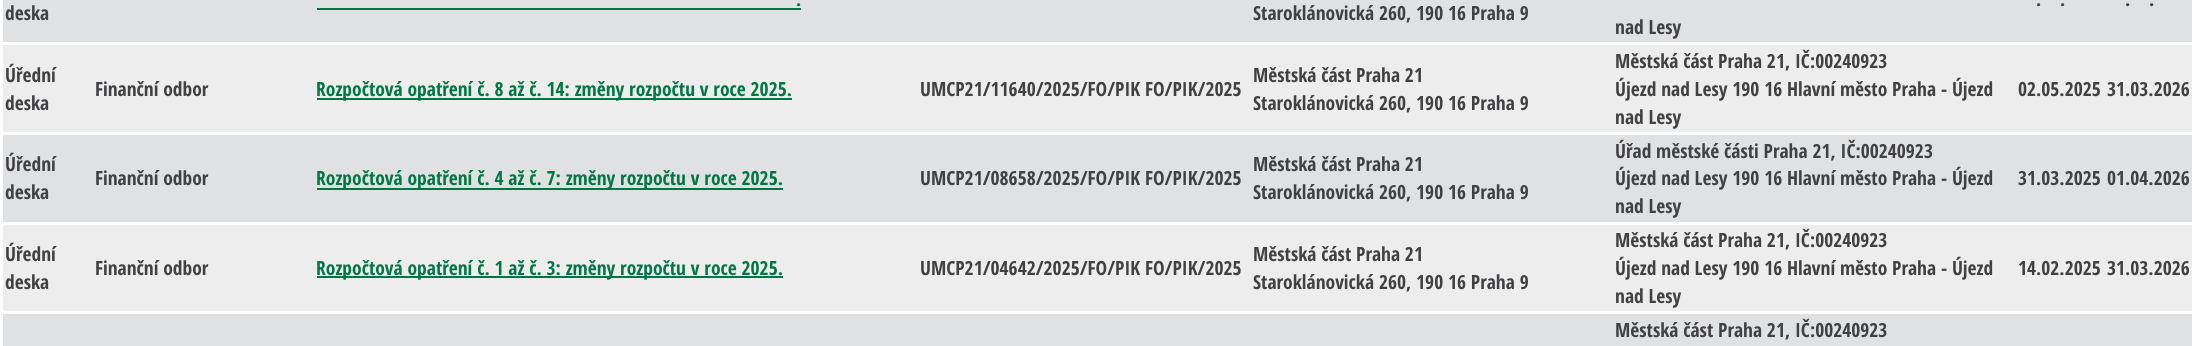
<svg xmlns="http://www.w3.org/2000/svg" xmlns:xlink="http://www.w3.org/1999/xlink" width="2194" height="346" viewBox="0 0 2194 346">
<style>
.cls-1{font:bold 19.5px Open Sans Condensed;fill:#414042}
.cls-2{font:bold 19.5px Open Sans Condensed;fill:#007744}
</style>
<rect width="100%" height="100%" fill="#ffffff"/>
<rect fill="#e0e1e2" x="3" y="0" width="2189" height="42"/>
<rect fill="#007744" x="317" y="8" width="484" height="2"/>
<rect fill="#ededee" x="3" y="45" width="2189" height="87"/>
<rect fill="#007744" x="317" y="98" width="475" height="2"/>
<rect fill="#e0e1e2" x="3" y="135" width="2189" height="87"/>
<rect fill="#007744" x="317" y="188" width="466" height="2"/>
<rect fill="#ededee" x="3" y="225" width="2189" height="86"/>
<rect fill="#007744" x="317" y="276" width="466" height="2"/>
<rect fill="#e0e1e2" x="3" y="314" width="2189" height="32"/>
<text class="cls-1" x="5" y="20">deska</text>
<text class="cls-2" x="796" y="6">.</text>
<text class="cls-1" x="1253" y="20">Staroklánovická 260, 190 16 Praha 9</text>
<text class="cls-1" x="2036" y="6">.</text>
<text class="cls-1" x="2060" y="6">.</text>
<text class="cls-1" x="2125" y="6">.</text>
<text class="cls-1" x="2149" y="6">.</text>
<text class="cls-1" x="1615" y="34">nad Lesy</text>
<text class="cls-1"><tspan x="5" y="82">Úřední</tspan><tspan x="5" y="110">deska</tspan></text>
<text class="cls-1" x="95" y="96">Finanční odbor</text>
<text class="cls-2" x="316" y="96">Rozpočtová opatření č. 8 až č. 14: změny rozpočtu v roce 2025.</text>
<text class="cls-1" x="920" y="96">UMCP21/11640/2025/FO/PIK FO/PIK/2025</text>
<text class="cls-1"><tspan x="1253" y="82">Městská část Praha 21</tspan><tspan x="1253" y="110">Staroklánovická 260, 190 16 Praha 9</tspan></text>
<text class="cls-1"><tspan x="1615" y="68">Městská část Praha 21, IČ:00240923</tspan><tspan x="1615" y="96">Újezd nad Lesy 190 16 Hlavní město Praha - Újezd</tspan><tspan x="1615" y="124">nad Lesy</tspan></text>
<text class="cls-1" x="2018" y="96">02.05.2025</text>
<text class="cls-1" x="2107" y="96">31.03.2026</text>
<text class="cls-1"><tspan x="5" y="171">Úřední</tspan><tspan x="5" y="199">deska</tspan></text>
<text class="cls-1" x="95" y="185">Finanční odbor</text>
<text class="cls-2" x="316" y="185">Rozpočtová opatření č. 4 až č. 7: změny rozpočtu v roce 2025.</text>
<text class="cls-1" x="920" y="185">UMCP21/08658/2025/FO/PIK FO/PIK/2025</text>
<text class="cls-1"><tspan x="1253" y="171">Městská část Praha 21</tspan><tspan x="1253" y="199">Staroklánovická 260, 190 16 Praha 9</tspan></text>
<text class="cls-1"><tspan x="1615" y="158">Úřad městské části Praha 21, IČ:00240923</tspan><tspan x="1615" y="185">Újezd nad Lesy 190 16 Hlavní město Praha - Újezd</tspan><tspan x="1615" y="213">nad Lesy</tspan></text>
<text class="cls-1" x="2018" y="185">31.03.2025</text>
<text class="cls-1" x="2107" y="185">01.04.2026</text>
<text class="cls-1"><tspan x="5" y="261">Úřední</tspan><tspan x="5" y="289">deska</tspan></text>
<text class="cls-1" x="95" y="275">Finanční odbor</text>
<text class="cls-2" x="316" y="275">Rozpočtová opatření č. 1 až č. 3: změny rozpočtu v roce 2025.</text>
<text class="cls-1" x="920" y="275">UMCP21/04642/2025/FO/PIK FO/PIK/2025</text>
<text class="cls-1"><tspan x="1253" y="261">Městská část Praha 21</tspan><tspan x="1253" y="289">Staroklánovická 260, 190 16 Praha 9</tspan></text>
<text class="cls-1"><tspan x="1615" y="247">Městská část Praha 21, IČ:00240923</tspan><tspan x="1615" y="275">Újezd nad Lesy 190 16 Hlavní město Praha - Újezd</tspan><tspan x="1615" y="303">nad Lesy</tspan></text>
<text class="cls-1" x="2018" y="275">14.02.2025</text>
<text class="cls-1" x="2107" y="275">31.03.2026</text>
<text class="cls-1" x="1615" y="337">Městská část Praha 21, IČ:00240923</text>
</svg>
